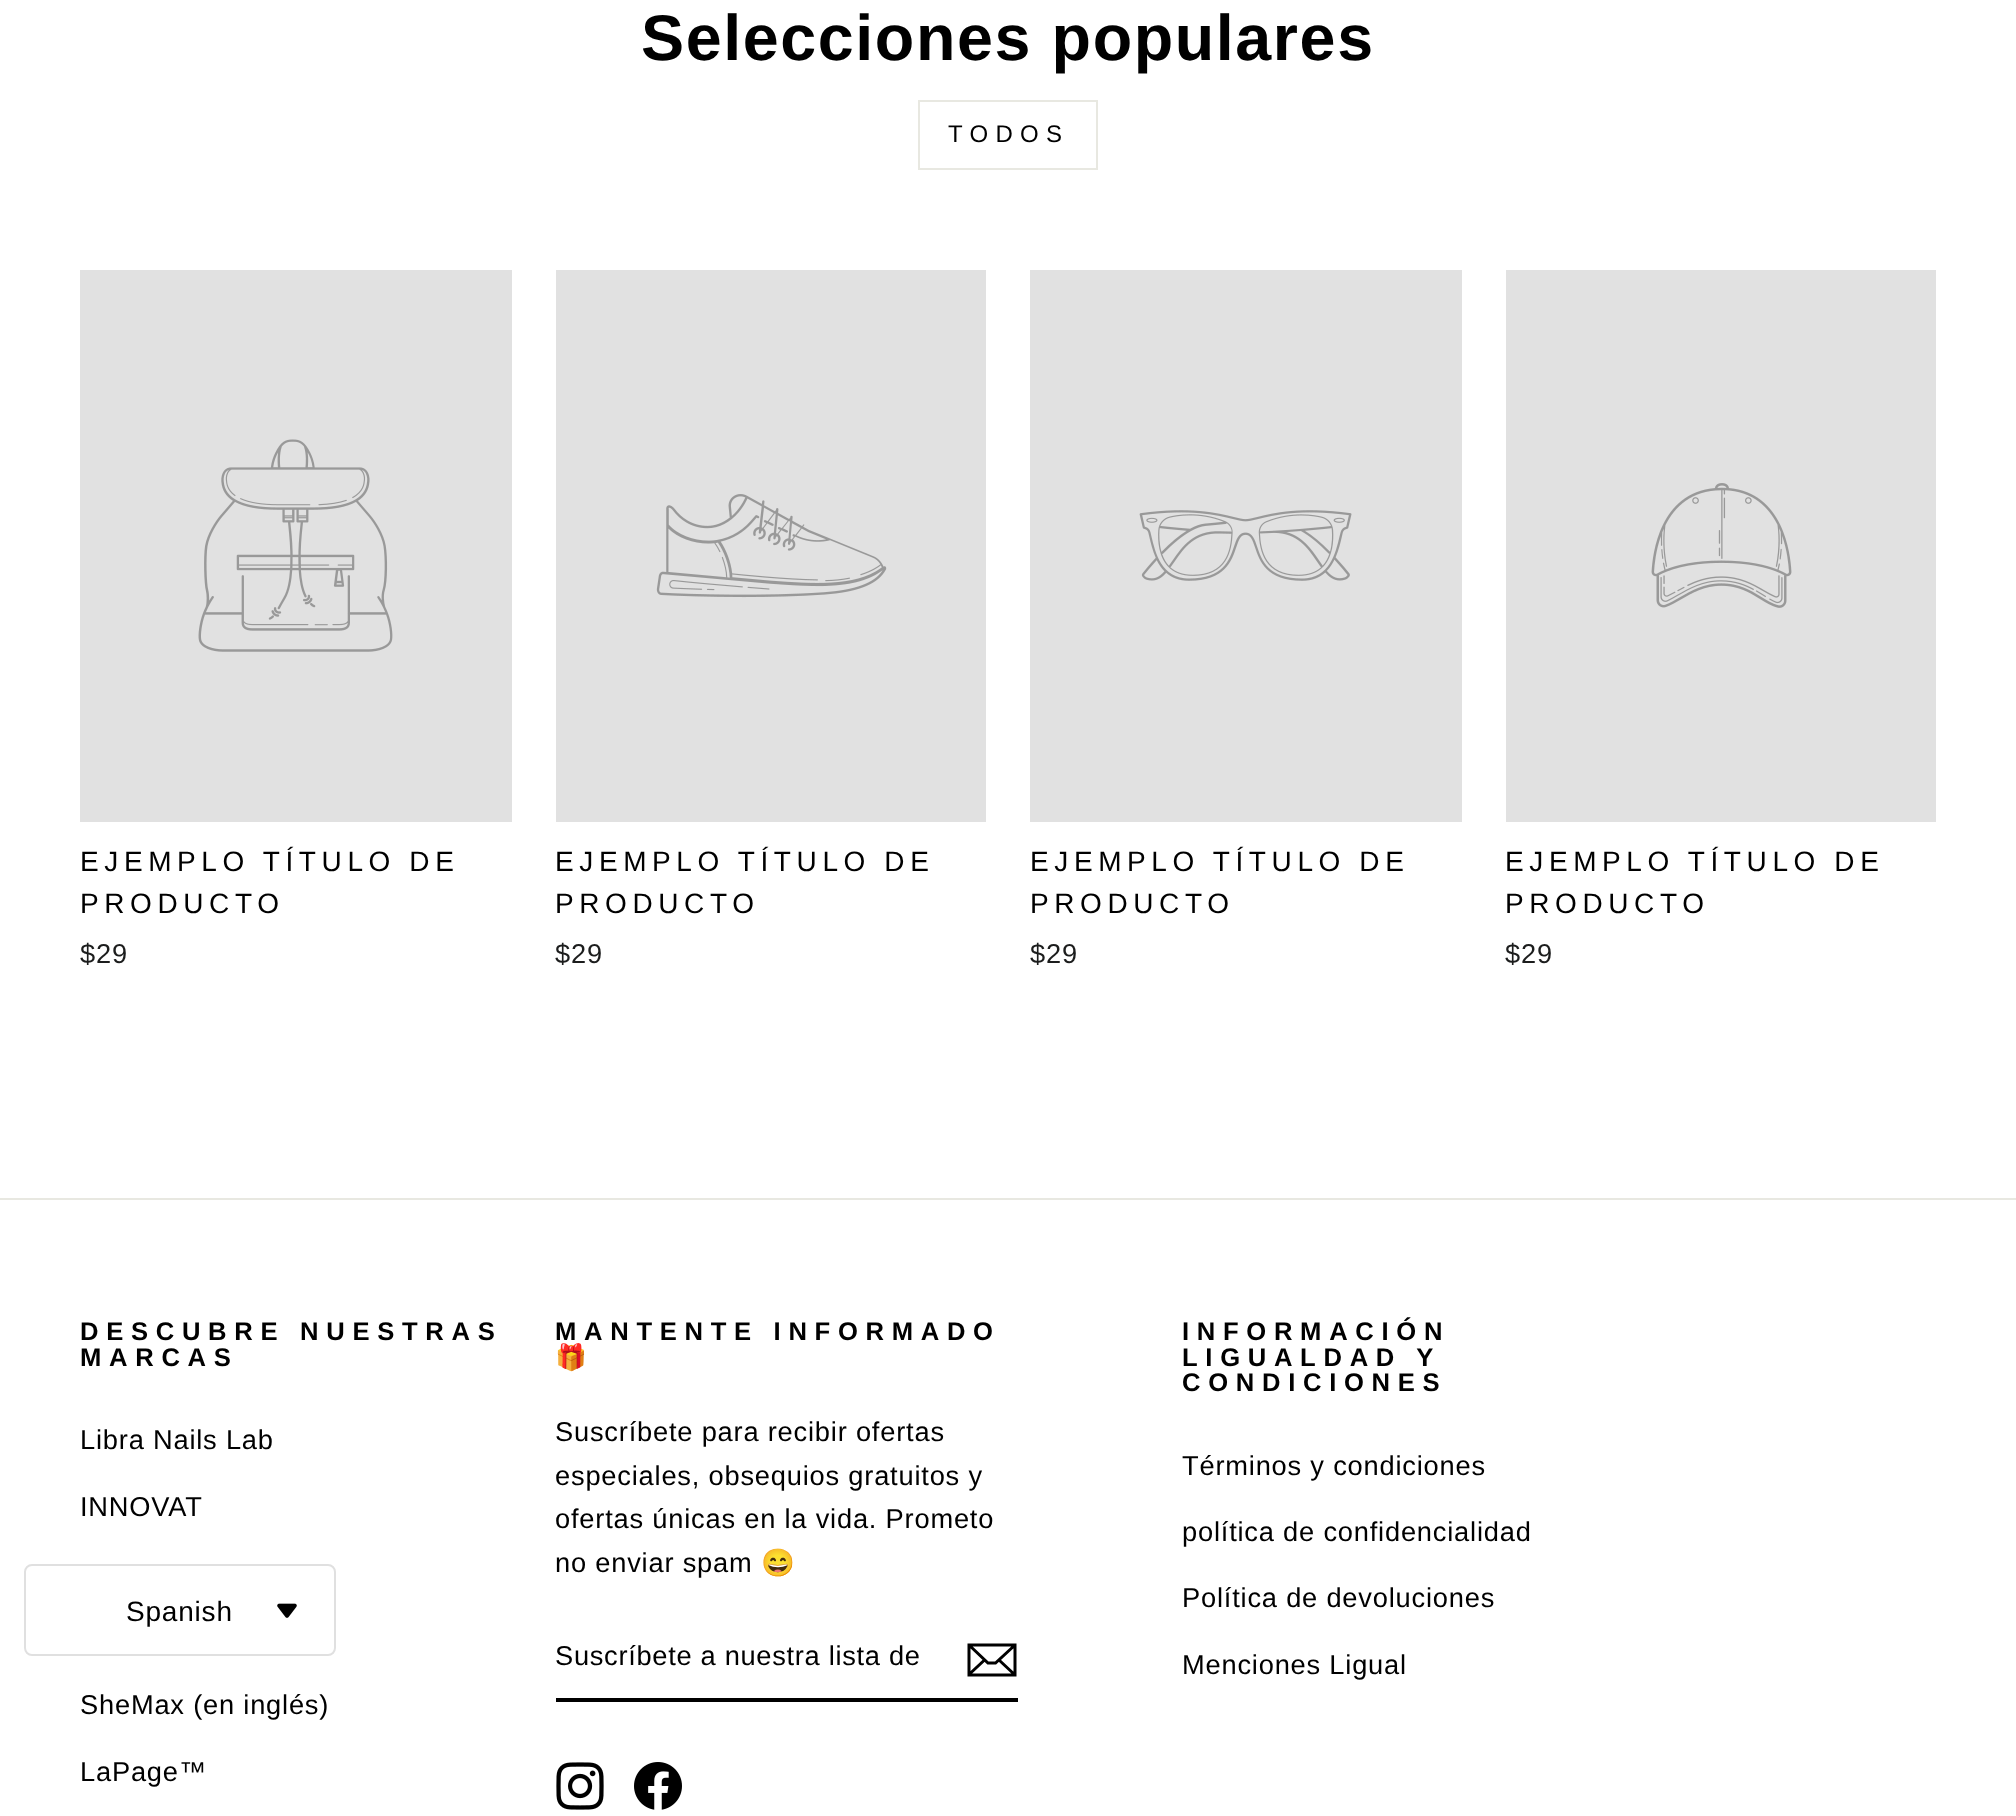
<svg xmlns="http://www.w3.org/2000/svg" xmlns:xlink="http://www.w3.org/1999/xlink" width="2016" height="1816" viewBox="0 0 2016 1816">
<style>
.cls-1{font:bold 64.6px Arimo;letter-spacing:1.6px;fill:#000000}
.cls-2{font:24px Arimo;letter-spacing:7.25px;fill:#000000}
.cls-3{font:28px Arimo;letter-spacing:5.6px;fill:#000000}
.cls-4{font:27.25px Arimo;letter-spacing:0.8px;fill:#1c1d1d}
.cls-5{font:bold 25.6px Arimo;letter-spacing:7.7px;fill:#000000}
.cls-6{font:27.25px Arimo;letter-spacing:0.8px;fill:#000000}
.cls-7{font:27.25px Liberation Sans;letter-spacing:0.8px;fill:#000000}
.cls-8{font:bold 25.6px Noto Color Emoji;letter-spacing:7.7px;fill:#000000}
.cls-9{font:27.25px Noto Color Emoji;letter-spacing:0.8px;fill:#000000}
.cls-10{font:27.25px Arimo;letter-spacing:0.7px;fill:#000000}
.cls-11{font:28px Arimo;letter-spacing:0.8px;fill:#000000}
</style>
<rect width="100%" height="100%" fill="#ffffff"/>
<rect fill="none" stroke="#e8e8e1" stroke-width="2" x="919" y="101" width="178" height="68"/>
<rect fill="#e1e1e1" x="80" y="270" width="432" height="552"/>
<image xlink:href="image0.png" x="198" y="439" width="195" height="213"/>
<rect fill="#e1e1e1" x="556" y="270" width="430" height="552"/>
<image xlink:href="image1.png" x="656" y="494" width="231" height="104"/>
<rect fill="#e1e1e1" x="1030" y="270" width="432" height="552"/>
<image xlink:href="image2.png" x="1139" y="510" width="213" height="71"/>
<rect fill="#e1e1e1" x="1506" y="270" width="430" height="552"/>
<image xlink:href="image3.png" x="1651" y="483" width="141" height="125"/>
<rect fill="#e8e8e1" x="0" y="1198" width="2016" height="2"/>
<rect fill="#000000" x="556" y="1698" width="462" height="4"/>
<path fill="none" stroke="#000000" stroke-width="3" d="M1015 1675H969V1645H1015ZM969 1645L988 1663H995.5L1015 1645M984.5 1660L969 1674.5M1015 1675L999 1660"/>
<image xlink:href="image4.png" x="556" y="1762" width="48" height="48"/>
<image xlink:href="image5.png" x="634" y="1762" width="48" height="48"/>
<rect fill="none" stroke="#e0e0e0" stroke-width="2" x="25" y="1565" width="310" height="90" rx="7"/>
<image xlink:href="image6.png" x="277" y="1603" width="20" height="15"/>
<text class="cls-1" x="641" y="60">Selecciones populares</text>
<text class="cls-2" x="948" y="142">TODOS</text>
<text class="cls-3"><tspan x="80" y="871">EJEMPLO TÍTULO DE</tspan><tspan x="80" y="913">PRODUCTO</tspan></text>
<text class="cls-4" x="80" y="963">$29</text>
<text class="cls-3"><tspan x="555" y="871">EJEMPLO TÍTULO DE</tspan><tspan x="555" y="913">PRODUCTO</tspan></text>
<text class="cls-4" x="555" y="963">$29</text>
<text class="cls-3"><tspan x="1030" y="871">EJEMPLO TÍTULO DE</tspan><tspan x="1030" y="913">PRODUCTO</tspan></text>
<text class="cls-4" x="1030" y="963">$29</text>
<text class="cls-3"><tspan x="1505" y="871">EJEMPLO TÍTULO DE</tspan><tspan x="1505" y="913">PRODUCTO</tspan></text>
<text class="cls-4" x="1505" y="963">$29</text>
<text class="cls-5"><tspan x="80" y="1340">DESCUBRE NUESTRAS</tspan><tspan x="80" y="1366">MARCAS</tspan></text>
<text class="cls-6" x="80" y="1449">Libra Nails Lab</text>
<text class="cls-6" x="80" y="1516">INNOVAT</text>
<text class="cls-6" x="80" y="1714">SheMax (en inglés)</text>
<text class="cls-6" x="80" y="1781">LaPage</text>
<text class="cls-7" x="179" y="1781">™</text>
<text class="cls-5" x="555" y="1340">MANTENTE INFORMADO</text>
<text class="cls-8" x="555" y="1366">🎁</text>
<text class="cls-6"><tspan x="555" y="1441">Suscríbete para recibir ofertas</tspan><tspan x="555" y="1485">especiales, obsequios gratuitos y</tspan><tspan x="555" y="1528">ofertas únicas en la vida. Prometo</tspan><tspan x="555" y="1572">no enviar spam</tspan></text>
<text class="cls-9" x="761" y="1572">😄</text>
<text class="cls-10" x="555" y="1665">Suscríbete a nuestra lista de</text>
<text class="cls-5"><tspan x="1182" y="1340">INFORMACIÓN</tspan><tspan x="1182" y="1366">LIGUALDAD Y</tspan><tspan x="1182" y="1391">CONDICIONES</tspan></text>
<text class="cls-6" x="1182" y="1475">Términos y condiciones</text>
<text class="cls-6" x="1182" y="1541">política de confidencialidad</text>
<text class="cls-6" x="1182" y="1607">Política de devoluciones</text>
<text class="cls-6" x="1182" y="1674">Menciones Ligual</text>
<text class="cls-11" x="126" y="1621">Spanish</text>
</svg>
